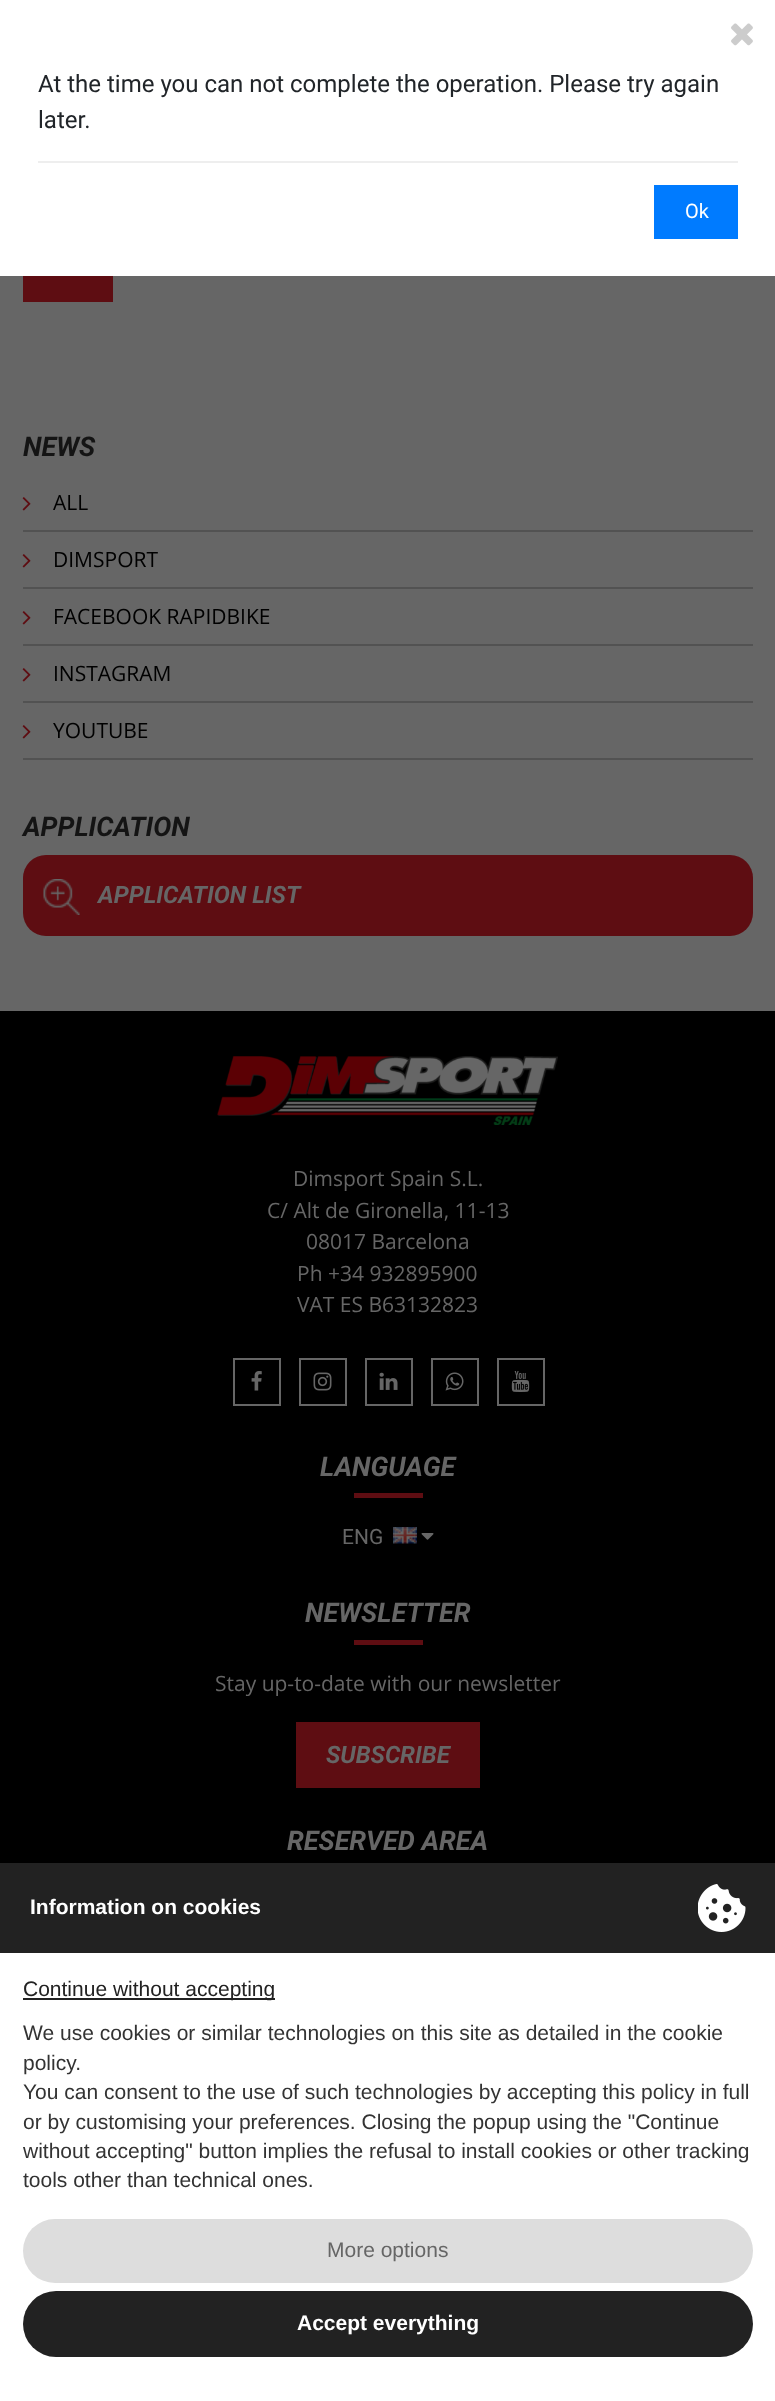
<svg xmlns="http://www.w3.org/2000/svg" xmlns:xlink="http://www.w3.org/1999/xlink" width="775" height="2401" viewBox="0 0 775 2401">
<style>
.cls-1{font:24px Roboto;fill:#212529}
.cls-2{font:20px Roboto;fill:#ffffff}
.cls-3{font:italic bold 27px Roboto;fill:#141414}
.cls-4{font:21px Open Sans;fill:#000000}
.cls-5{font:italic bold 24px Roboto;fill:#666666}
.cls-6{font:21px Open Sans;fill:#666666}
.cls-7{font:italic bold 27px Roboto;fill:#666666}
.cls-8{font:21px Roboto;fill:#666666}
.cls-9{font:bold 21px Liberation Sans;fill:#ffffff}
.cls-10{font:21px Liberation Sans;fill:#222222}
.cls-11{font:21px Liberation Sans;fill:#333333}
.cls-12{font:21px Liberation Sans;fill:#666666}
</style>
<rect width="100%" height="100%" fill="#666666"/>
<rect fill="#ffffff" x="0" y="0" width="775" height="276"/>
<image xlink:href="image0.png" x="731" y="23" width="22" height="23"/>
<rect fill="#eeeeee" x="38" y="161" width="700" height="2"/>
<rect fill="#007bff" x="654" y="185" width="84" height="54"/>
<rect fill="#5e0d12" x="23" y="276" width="90" height="26"/>
<rect fill="#525252" x="23" y="530" width="730" height="2"/>
<image xlink:href="image1.png" x="22" y="497" width="9" height="14"/>
<rect fill="#525252" x="23" y="587" width="730" height="2"/>
<image xlink:href="image1.png" x="22" y="554" width="9" height="14"/>
<rect fill="#525252" x="23" y="644" width="730" height="2"/>
<image xlink:href="image1.png" x="22" y="611" width="9" height="14"/>
<rect fill="#525252" x="23" y="701" width="730" height="2"/>
<image xlink:href="image1.png" x="22" y="668" width="9" height="14"/>
<rect fill="#525252" x="23" y="758" width="730" height="2"/>
<image xlink:href="image1.png" x="22" y="725" width="9" height="14"/>
<rect fill="#5e0d12" x="23" y="855" width="730" height="81" rx="23"/>
<image xlink:href="image2.png" x="43" y="879" width="37" height="36"/>
<rect fill="#000000" x="0" y="1011" width="775" height="852"/>
<image xlink:href="image3.png" x="217" y="1056" width="341" height="69"/>
<rect fill="none" stroke="#666666" stroke-width="2" x="234" y="1359" width="46" height="46"/>
<image xlink:href="image4.png" x="251" y="1371" width="11" height="20"/>
<rect fill="none" stroke="#666666" stroke-width="2" x="300" y="1359" width="46" height="46"/>
<image xlink:href="image5.png" x="313" y="1372" width="19" height="19"/>
<rect fill="none" stroke="#666666" stroke-width="2" x="366" y="1359" width="46" height="46"/>
<image xlink:href="image6.png" x="379" y="1372" width="19" height="18"/>
<rect fill="none" stroke="#666666" stroke-width="2" x="432" y="1359" width="46" height="46"/>
<image xlink:href="image7.png" x="445" y="1372" width="19" height="19"/>
<rect fill="none" stroke="#666666" stroke-width="2" x="498" y="1359" width="46" height="46"/>
<image xlink:href="image8.png" x="511" y="1371" width="19" height="21"/>
<rect fill="#5e0d12" x="354" y="1493" width="69" height="5"/>
<image xlink:href="image9.png" x="393" y="1527" width="24" height="17"/>
<image xlink:href="image10.png" x="421" y="1533" width="13" height="7"/>
<rect fill="#5e0d12" x="354" y="1640" width="69" height="5"/>
<rect fill="#5e0d12" x="296" y="1722" width="184" height="66"/>
<rect fill="#ffffff" x="0" y="1953" width="775" height="448"/>
<rect fill="#222222" x="0" y="1863" width="775" height="90"/>
<image xlink:href="image11.png" x="698" y="1884" width="48" height="48"/>
<rect fill="#222222" x="23" y="1998" width="252" height="2"/>
<rect fill="#dddddd" x="23" y="2219" width="730" height="64" rx="32"/>
<rect fill="#222222" x="23" y="2291" width="730" height="66" rx="33"/>
<text class="cls-1"><tspan x="38" y="92">At the time you can not complete the operation. Please try again</tspan><tspan x="38" y="128">later.</tspan></text>
<text class="cls-2" x="685" y="218">Ok</text>
<text class="cls-3" x="23" y="456">NEWS</text>
<text class="cls-4" x="53" y="510">ALL</text>
<text class="cls-4" x="53" y="567">DIMSPORT</text>
<text class="cls-4" x="53" y="624">FACEBOOK RAPIDBIKE</text>
<text class="cls-4" x="53" y="681">INSTAGRAM</text>
<text class="cls-4" x="53" y="738">YOUTUBE</text>
<text class="cls-3" x="23" y="836">APPLICATION</text>
<text class="cls-5" x="98" y="903">APPLICATION LIST</text>
<text class="cls-6" x="293" y="1186">Dimsport Spain S.L.</text>
<text class="cls-6" x="267" y="1218">C/ Alt de Gironella, 11-13</text>
<text class="cls-6" x="306" y="1249">08017 Barcelona</text>
<text class="cls-6"><tspan x="297" y="1281">Ph +34 932895900</tspan><tspan x="297" y="1312">VAT ES B63132823</tspan></text>
<text class="cls-7" x="320" y="1476">LANGUAGE</text>
<text class="cls-8" x="342" y="1544">ENG</text>
<text class="cls-7" x="305" y="1622">NEWSLETTER</text>
<text class="cls-6" x="215" y="1691">Stay up-to-date with our newsletter</text>
<text class="cls-5" x="326" y="1763">SUBSCRIBE</text>
<text class="cls-7" x="287" y="1850">RESERVED AREA</text>
<text class="cls-9" x="30" y="1914">Information on cookies</text>
<text class="cls-10" x="23" y="1996">Continue without accepting</text>
<text class="cls-11"><tspan x="23" y="2040">We use cookies or similar technologies on this site as detailed in the cookie</tspan><tspan x="23" y="2070">policy.</tspan><tspan x="23" y="2099">You can consent to the use of such technologies by accepting this policy in full</tspan><tspan x="23" y="2129">or by customising your preferences. Closing the popup using the "Continue</tspan><tspan x="23" y="2158">without accepting" button implies the refusal to install cookies or other tracking</tspan><tspan x="23" y="2187">tools other than technical ones.</tspan></text>
<text class="cls-12" x="327" y="2257">More options</text>
<text class="cls-9" x="297" y="2330">Accept everything</text>
</svg>
